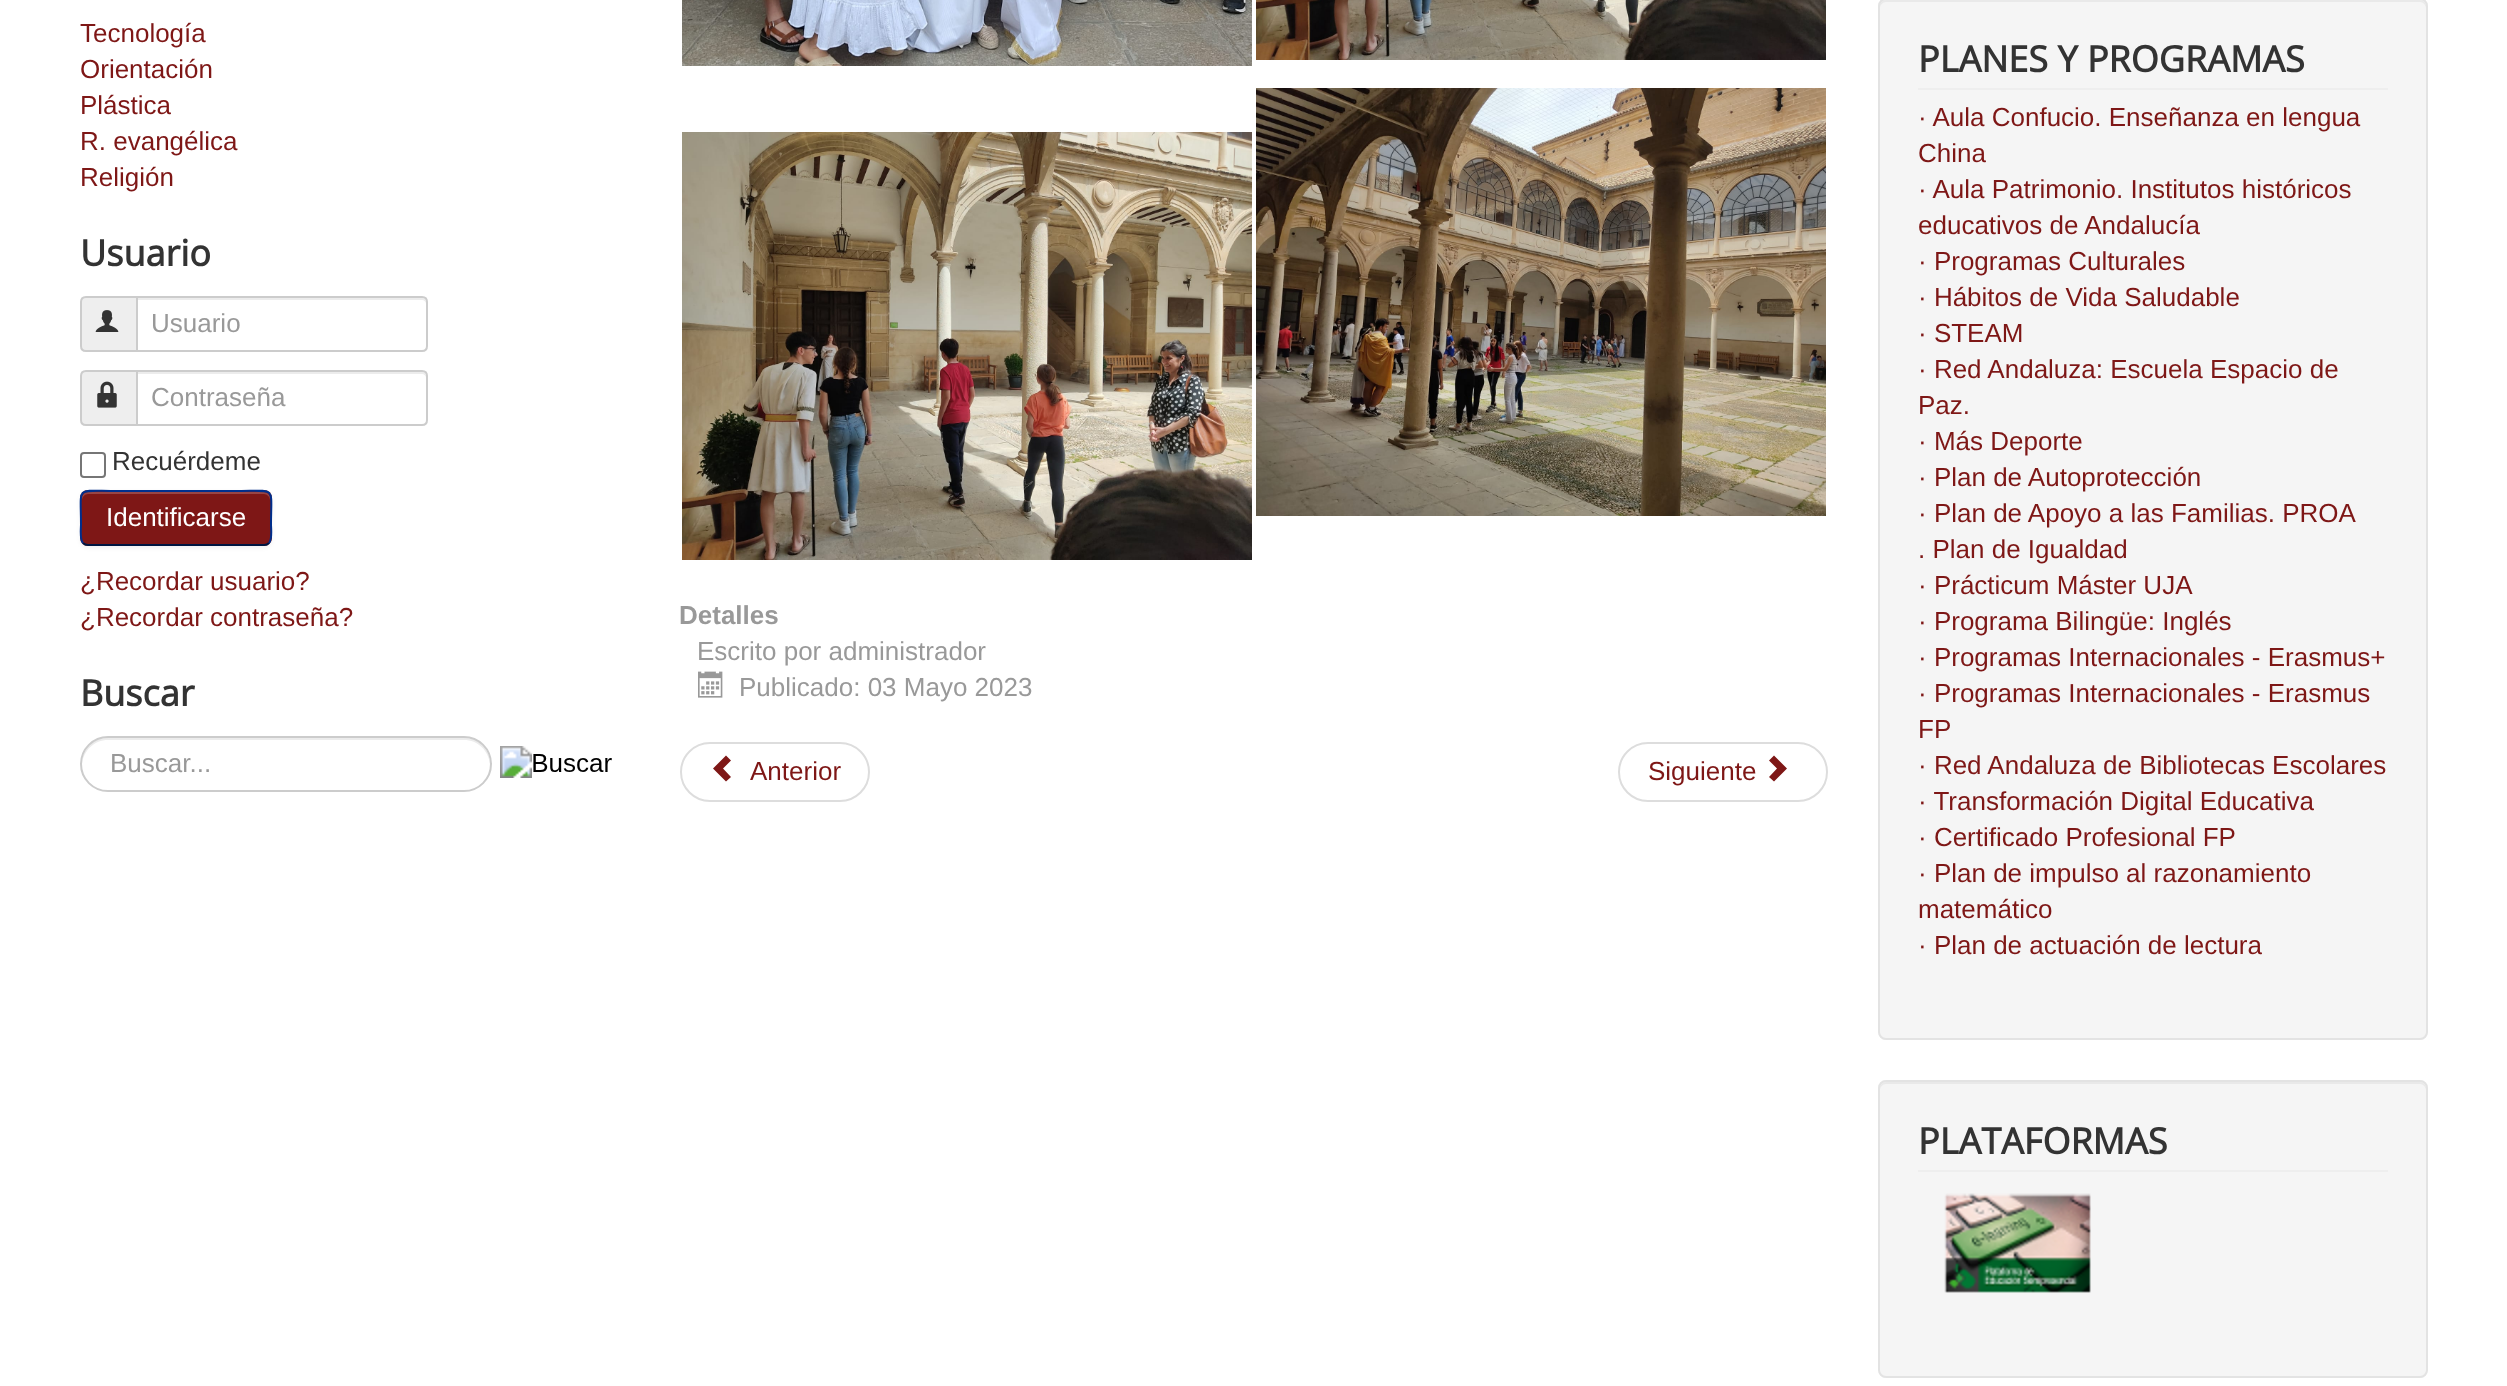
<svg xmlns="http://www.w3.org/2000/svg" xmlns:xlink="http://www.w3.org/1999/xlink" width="2507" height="1386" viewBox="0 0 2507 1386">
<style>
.cls-1{font:26px Liberation Sans;fill:#7e1716}
.cls-2{font:bold 36px Open Sans;fill:#333333}
.cls-3{font:26px Liberation Sans;fill:#999999}
.cls-4{font:26px Liberation Sans;fill:#333333}
.cls-5{font:26px Liberation Sans;fill:#ffffff}
.cls-6{font:bold 26px Liberation Sans;fill:#999999}
</style>
<rect width="100%" height="100%" fill="#ffffff"/>
<path fill="#eeeeee" stroke="#cccccc" stroke-width="2" d="M86 297H137V351H86C83 351 81 349 81 346V302C81 299 83 297 86 297Z"/>
<image xlink:href="image0.png" x="95" y="310" width="24" height="22"/>
<path fill="#ffffff" d="M136 296H422C425.5 296 428 298.5 428 302V346C428 349.5 425.5 352 422 352H136Z"/>
<path fill="#ececec" d="M138 300H422C424 300 426 302 426 304C426 301 426 298 422 298H138Z"/>
<path fill="none" stroke="#cccccc" stroke-width="2" d="M137 297H422C425 297 427 299 427 302V346C427 349 425 351 422 351H137Z"/>
<path fill="#eeeeee" stroke="#cccccc" stroke-width="2" d="M86 371H137V425H86C83 425 81 423 81 420V376C81 373 83 371 86 371Z"/>
<image xlink:href="image1.png" x="97" y="381" width="20" height="27"/>
<path fill="#ffffff" d="M136 370H422C425.5 370 428 372.5 428 376V420C428 423.5 425.5 426 422 426H136Z"/>
<path fill="#ececec" d="M138 374H422C424 374 426 376 426 378C426 375 426 372 422 372H138Z"/>
<path fill="none" stroke="#cccccc" stroke-width="2" d="M137 371H422C425 371 427 373 427 376V420C427 423 425 425 422 425H137Z"/>
<rect fill="none" stroke="#767676" stroke-width="2" x="81" y="453" width="24" height="24" rx="3"/>
<rect fill="#000000" fill-opacity="0.05" filter="blur(2px)" x="80" y="492" width="192" height="56" rx="8"/>
<rect fill="#7e1716" x="80" y="490" width="192" height="56" rx="8"/>
<path fill="#984545" d="M88 494H264C267 494 270 497 270 500V498C270 495 267 492 264 492H88C85 492 82 495 82 498V500C82 497 85 494 88 494Z"/>
<path fill="none" stroke="#001641" stroke-width="2" d="M269 543C267.5 544.5 266 545 264 545H88C86 545 84.5 544.5 83 543"/>
<path fill="none" stroke="#002f8d" stroke-width="2" d="M83 543C79.5 539 81 529 81 524.5C81 484.5 74.5 491 117.5 491H234.5C277.5 491 271 484.5 271 524.5C271 529 272.5 539 269 543"/>
<path fill="#ececec" d="M108 740H464C478 740 489 751 490 765C491 750 479 738 464 738H108C93 738 81 750 82 765C83 751 94 740 108 740Z"/>
<rect fill="none" stroke="#cccccc" stroke-width="2" x="81" y="737" width="410" height="54" rx="27"/>
<image xlink:href="image2.png" x="500" y="746" width="112" height="32"/>
<image xlink:href="image3.png" x="682" y="0" width="570" height="66"/>
<image xlink:href="image4.png" x="1256" y="0" width="570" height="60"/>
<image xlink:href="image5.png" x="682" y="132" width="570" height="428"/>
<image xlink:href="image6.png" x="1256" y="88" width="570" height="428"/>
<image xlink:href="image7.png" x="698" y="671" width="25" height="27"/>
<rect fill="none" stroke="#dddddd" stroke-width="2" x="681" y="743" width="188" height="58" rx="29"/>
<path fill="#7e1716" d="M726 781.5L713 768.5L726 755.5L731 760.5L723 768.5L731 777Z"/>
<rect fill="none" stroke="#dddddd" stroke-width="2" x="1619" y="743" width="208" height="58" rx="29"/>
<path fill="#7e1716" d="M1774 755.5L1787 768.5L1774 781.5L1769 777L1777 768.5L1769 760.5Z"/>
<rect fill="#f5f5f5" x="1878" y="-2" width="550" height="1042" rx="8"/>
<path fill="#e9e9e9" d="M1886 2H2420C2423 2 2426 5 2426 8V6C2426 3 2423 0 2420 0H1886C1883 0 1880 3 1880 6V8C1880 5 1883 2 1886 2Z"/>
<rect fill="none" stroke="#e3e3e3" stroke-width="2" x="1879" y="-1" width="548" height="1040" rx="7"/>
<rect fill="#eeeeee" x="1918" y="88" width="470" height="2"/>
<rect fill="#f5f5f5" x="1878" y="1080" width="550" height="298" rx="8"/>
<path fill="#e9e9e9" d="M1886 1084H2420C2423 1084 2426 1087 2426 1090V1088C2426 1085 2423 1082 2420 1082H1886C1883 1082 1880 1085 1880 1088V1090C1880 1087 1883 1084 1886 1084Z"/>
<rect fill="none" stroke="#e3e3e3" stroke-width="2" x="1879" y="1081" width="548" height="296" rx="7"/>
<rect fill="#eeeeee" x="1918" y="1170" width="470" height="2"/>
<image xlink:href="image8.png" x="1944" y="1193" width="147" height="100"/>
<text class="cls-1"><tspan x="80" y="42">Tecnología</tspan><tspan x="80" y="78">Orientación</tspan><tspan x="80" y="114">Plástica</tspan><tspan x="80" y="150">R. evangélica</tspan><tspan x="80" y="186">Religión</tspan></text>
<text class="cls-2" x="80" y="266">Usuario</text>
<text class="cls-3" x="151" y="332">Usuario</text>
<text class="cls-3" x="151" y="406">Contraseña</text>
<text class="cls-4" x="112" y="470">Recuérdeme</text>
<text class="cls-5" x="106" y="526">Identificarse</text>
<text class="cls-1"><tspan x="80" y="590">¿Recordar usuario?</tspan><tspan x="80" y="626">¿Recordar contraseña?</tspan></text>
<text class="cls-2" x="80" y="706">Buscar</text>
<text class="cls-3" x="110" y="772">Buscar...</text>
<text class="cls-6" x="679" y="624">Detalles</text>
<text class="cls-3" x="697" y="660">Escrito por administrador</text>
<text class="cls-3" x="739" y="696">Publicado: 03 Mayo 2023</text>
<text class="cls-1" x="750" y="780">Anterior</text>
<text class="cls-1" x="1648" y="780">Siguiente</text>
<text class="cls-2" x="1918" y="72">PLANES Y PROGRAMAS</text>
<text class="cls-1"><tspan x="1918" y="126">· Aula Confucio. Enseñanza en lengua</tspan><tspan x="1918" y="162">China</tspan><tspan x="1918" y="198">· Aula Patrimonio. Institutos históricos</tspan><tspan x="1918" y="234">educativos de Andalucía</tspan><tspan x="1918" y="270">· Programas Culturales</tspan><tspan x="1918" y="306">· Hábitos de Vida Saludable</tspan><tspan x="1918" y="342">· STEAM</tspan><tspan x="1918" y="378">· Red Andaluza: Escuela Espacio de</tspan><tspan x="1918" y="414">Paz.</tspan><tspan x="1918" y="450">· Más Deporte</tspan><tspan x="1918" y="486">· Plan de Autoprotección</tspan><tspan x="1918" y="522">· Plan de Apoyo a las Familias. PROA</tspan><tspan x="1918" y="558">. Plan de Igualdad</tspan><tspan x="1918" y="594">· Prácticum Máster UJA</tspan><tspan x="1918" y="630">· Programa Bilingüe: Inglés</tspan><tspan x="1918" y="666">· Programas Internacionales - Erasmus+</tspan><tspan x="1918" y="702">· Programas Internacionales - Erasmus</tspan><tspan x="1918" y="738">FP</tspan><tspan x="1918" y="774">· Red Andaluza de Bibliotecas Escolares</tspan><tspan x="1918" y="810">· Transformación Digital Educativa</tspan><tspan x="1918" y="846">· Certificado Profesional FP</tspan><tspan x="1918" y="882">· Plan de impulso al razonamiento</tspan><tspan x="1918" y="918">matemático</tspan><tspan x="1918" y="954">· Plan de actuación de lectura</tspan></text>
<text class="cls-2" x="1918" y="1154">PLATAFORMAS</text>
</svg>
